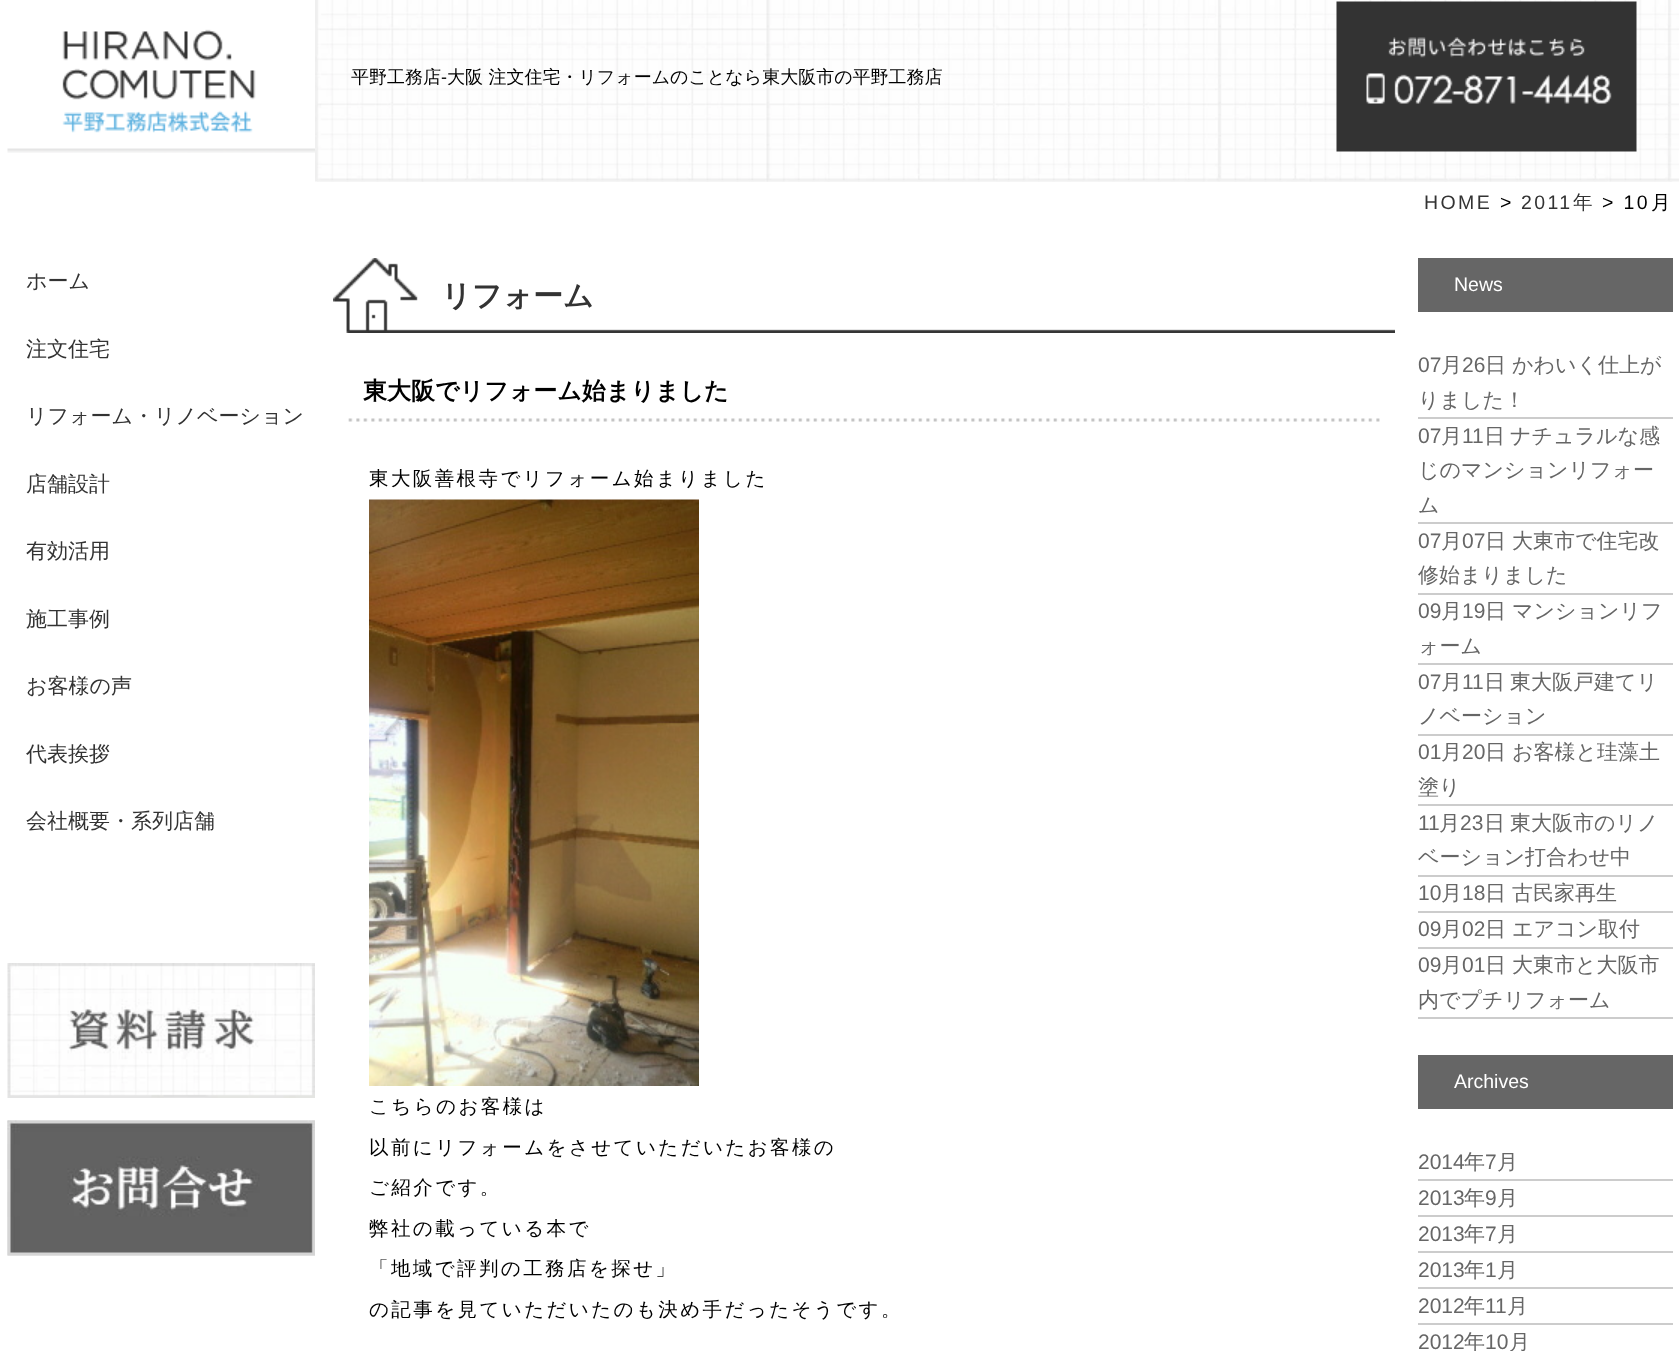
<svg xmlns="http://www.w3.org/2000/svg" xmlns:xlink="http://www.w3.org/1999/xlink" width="1679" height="1351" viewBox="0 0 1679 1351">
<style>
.cls-1{font:500 18px WenQuanYi Zen Hei;fill:#000000}
.cls-2{font:18px Liberation Sans;fill:#000000}
.cls-3{font:500 21px WenQuanYi Zen Hei;fill:#333333}
.cls-4{font:19.5px Liberation Sans;letter-spacing:2.4px;fill:#333333}
.cls-5{font:19.5px Liberation Sans;letter-spacing:2.4px;fill:#000000}
.cls-6{font:500 19.5px WenQuanYi Zen Hei;letter-spacing:2.4px;fill:#333333}
.cls-7{font:500 19.5px WenQuanYi Zen Hei;letter-spacing:2.4px;fill:#000000}
.cls-8{font:bold 30px WenQuanYi Zen Hei;fill:#333333}
.cls-9{font:bold 24px WenQuanYi Zen Hei;fill:#000000}
.cls-10{font:19.5px Liberation Sans;fill:#ffffff}
.cls-11{font:21px Liberation Sans;fill:#666666}
.cls-12{font:500 21px WenQuanYi Zen Hei;fill:#666666}
</style>
<rect width="100%" height="100%" fill="#ffffff"/>
<image xlink:href="image0.png" x="315" y="0" width="1358" height="182"/>
<image xlink:href="image1.png" x="317" y="0" width="1362" height="182"/>
<image xlink:href="image2.png" x="1336" y="1" width="301" height="151"/>
<image xlink:href="image3.png" x="7" y="29" width="308" height="124"/>
<image xlink:href="image4.png" x="7" y="963" width="308" height="135"/>
<image xlink:href="image5.png" x="7" y="1120" width="308" height="136"/>
<image xlink:href="image6.png" x="7" y="1120" width="308" height="136"/>
<image xlink:href="image7.png" x="333" y="258" width="1062" height="75"/>
<image xlink:href="image8.png" x="348" y="418" width="1032" height="4"/>
<image xlink:href="image9.png" x="369" y="499" width="330" height="587"/>
<rect fill="#666666" x="1418" y="258" width="255" height="54"/>
<rect fill="#cccccc" x="1418" y="417" width="255" height="2"/>
<rect fill="#cccccc" x="1418" y="522" width="255" height="2"/>
<rect fill="#cccccc" x="1418" y="593" width="255" height="2"/>
<rect fill="#cccccc" x="1418" y="663" width="255" height="2"/>
<rect fill="#cccccc" x="1418" y="734" width="255" height="2"/>
<rect fill="#cccccc" x="1418" y="804" width="255" height="2"/>
<rect fill="#cccccc" x="1418" y="875" width="255" height="2"/>
<rect fill="#cccccc" x="1418" y="911" width="255" height="2"/>
<rect fill="#cccccc" x="1418" y="947" width="255" height="2"/>
<rect fill="#cccccc" x="1418" y="1017" width="255" height="2"/>
<rect fill="#666666" x="1418" y="1055" width="255" height="54"/>
<rect fill="#cccccc" x="1418" y="1179" width="255" height="2"/>
<rect fill="#cccccc" x="1418" y="1215" width="255" height="2"/>
<rect fill="#cccccc" x="1418" y="1251" width="255" height="2"/>
<rect fill="#cccccc" x="1418" y="1287" width="255" height="2"/>
<rect fill="#cccccc" x="1418" y="1323" width="255" height="2"/>
<text class="cls-1" x="351" y="83">平野工務店</text>
<text class="cls-2" x="441" y="83">-</text>
<text class="cls-1" x="447" y="83">大阪 注文住宅・リフォームのことなら東大阪市の平野工務店</text>
<text class="cls-3" x="26" y="288">ホーム</text>
<text class="cls-3" x="26" y="356">注文住宅</text>
<text class="cls-3" x="26" y="423">リフォーム・リノベーション</text>
<text class="cls-3" x="26" y="491">店舗設計</text>
<text class="cls-3" x="26" y="558">有効活用</text>
<text class="cls-3" x="26" y="626">施工事例</text>
<text class="cls-3" x="26" y="693">お客様の声</text>
<text class="cls-3" x="26" y="761">代表挨拶</text>
<text class="cls-3" x="26" y="828">会社概要・系列店舗</text>
<text class="cls-4" x="1424" y="209">HOME</text>
<text class="cls-5" x="1500" y="209">&gt;</text>
<text class="cls-4" x="1521" y="209">2011</text>
<text class="cls-6" x="1573" y="209">年</text>
<text class="cls-5" x="1602" y="209">&gt; 10</text>
<text class="cls-7" x="1651" y="209">月</text>
<text class="cls-8" x="441" y="306">リフォーム</text>
<text class="cls-9" x="363" y="399">東大阪でリフォーム始まりました</text>
<text class="cls-7" x="369" y="485">東大阪善根寺でリフォーム始まりました</text>
<text class="cls-7" x="369" y="1113">こちらのお客様は</text>
<text class="cls-7" x="369" y="1154">以前にリフォームをさせていただいたお客様の</text>
<text class="cls-7" x="369" y="1194">ご紹介です。</text>
<text class="cls-7" x="369" y="1235">弊社の載っている本で</text>
<text class="cls-7" x="369" y="1275">「地域で評判の工務店を探せ」</text>
<text class="cls-7" x="369" y="1316">の記事を見ていただいたのも決め手だったそうです。</text>
<text class="cls-10" x="1454" y="291">News</text>
<text class="cls-11" x="1418" y="372">07</text>
<text class="cls-12" x="1441" y="372">月</text>
<text class="cls-11" x="1462" y="372">26</text>
<text class="cls-12" x="1485" y="372">日</text>
<text class="cls-12" x="1512" y="372">かわいく仕上が</text>
<text class="cls-12" x="1418" y="407">りました！</text>
<text class="cls-11" x="1418" y="443">07</text>
<text class="cls-12" x="1441" y="443">月</text>
<text class="cls-11" x="1462" y="443">11</text>
<text class="cls-12" x="1484" y="443">日</text>
<text class="cls-12" x="1510" y="443">ナチュラルな感</text>
<text class="cls-12"><tspan x="1418" y="477">じのマンションリフォー</tspan><tspan x="1418" y="512">ム</tspan></text>
<text class="cls-11" x="1418" y="548">07</text>
<text class="cls-12" x="1441" y="548">月</text>
<text class="cls-11" x="1462" y="548">07</text>
<text class="cls-12" x="1485" y="548">日</text>
<text class="cls-12" x="1512" y="548">大東市で住宅改</text>
<text class="cls-12" x="1418" y="582">修始まりました</text>
<text class="cls-11" x="1418" y="618">09</text>
<text class="cls-12" x="1441" y="618">月</text>
<text class="cls-11" x="1462" y="618">19</text>
<text class="cls-12" x="1485" y="618">日</text>
<text class="cls-12" x="1512" y="618">マンションリフ</text>
<text class="cls-12" x="1418" y="653">ォーム</text>
<text class="cls-11" x="1418" y="689">07</text>
<text class="cls-12" x="1441" y="689">月</text>
<text class="cls-11" x="1462" y="689">11</text>
<text class="cls-12" x="1484" y="689">日</text>
<text class="cls-12" x="1510" y="689">東大阪戸建てリ</text>
<text class="cls-12" x="1418" y="723">ノベーション</text>
<text class="cls-11" x="1418" y="759">01</text>
<text class="cls-12" x="1441" y="759">月</text>
<text class="cls-11" x="1462" y="759">20</text>
<text class="cls-12" x="1485" y="759">日</text>
<text class="cls-12" x="1512" y="759">お客様と珪藻土</text>
<text class="cls-12" x="1418" y="794">塗り</text>
<text class="cls-11" x="1418" y="830">11</text>
<text class="cls-12" x="1439" y="830">月</text>
<text class="cls-11" x="1460" y="830">23</text>
<text class="cls-12" x="1484" y="830">日</text>
<text class="cls-12" x="1510" y="830">東大阪市のリノ</text>
<text class="cls-12" x="1418" y="864">ベーション打合わせ中</text>
<text class="cls-11" x="1418" y="900">10</text>
<text class="cls-12" x="1441" y="900">月</text>
<text class="cls-11" x="1462" y="900">18</text>
<text class="cls-12" x="1485" y="900">日</text>
<text class="cls-12" x="1512" y="900">古民家再生</text>
<text class="cls-11" x="1418" y="936">09</text>
<text class="cls-12" x="1441" y="936">月</text>
<text class="cls-11" x="1462" y="936">02</text>
<text class="cls-12" x="1485" y="936">日</text>
<text class="cls-12" x="1512" y="936">エアコン取付</text>
<text class="cls-11" x="1418" y="972">09</text>
<text class="cls-12" x="1441" y="972">月</text>
<text class="cls-11" x="1462" y="972">01</text>
<text class="cls-12" x="1485" y="972">日</text>
<text class="cls-12" x="1512" y="972">大東市と大阪市</text>
<text class="cls-12" x="1418" y="1007">内でプチリフォーム</text>
<text class="cls-10" x="1454" y="1088">Archives</text>
<text class="cls-11" x="1418" y="1169">2014</text>
<text class="cls-12" x="1464" y="1169">年</text>
<text class="cls-11" x="1485" y="1169">7</text>
<text class="cls-12" x="1497" y="1169">月</text>
<text class="cls-11" x="1418" y="1205">2013</text>
<text class="cls-12" x="1464" y="1205">年</text>
<text class="cls-11" x="1485" y="1205">9</text>
<text class="cls-12" x="1497" y="1205">月</text>
<text class="cls-11" x="1418" y="1241">2013</text>
<text class="cls-12" x="1464" y="1241">年</text>
<text class="cls-11" x="1485" y="1241">7</text>
<text class="cls-12" x="1497" y="1241">月</text>
<text class="cls-11" x="1418" y="1277">2013</text>
<text class="cls-12" x="1464" y="1277">年</text>
<text class="cls-11" x="1485" y="1277">1</text>
<text class="cls-12" x="1497" y="1277">月</text>
<text class="cls-11" x="1418" y="1313">2012</text>
<text class="cls-12" x="1464" y="1313">年</text>
<text class="cls-11" x="1485" y="1313">11</text>
<text class="cls-12" x="1507" y="1313">月</text>
<text class="cls-11" x="1418" y="1349">2012</text>
<text class="cls-12" x="1464" y="1349">年</text>
<text class="cls-11" x="1485" y="1349">10</text>
<text class="cls-12" x="1509" y="1349">月</text>
</svg>
